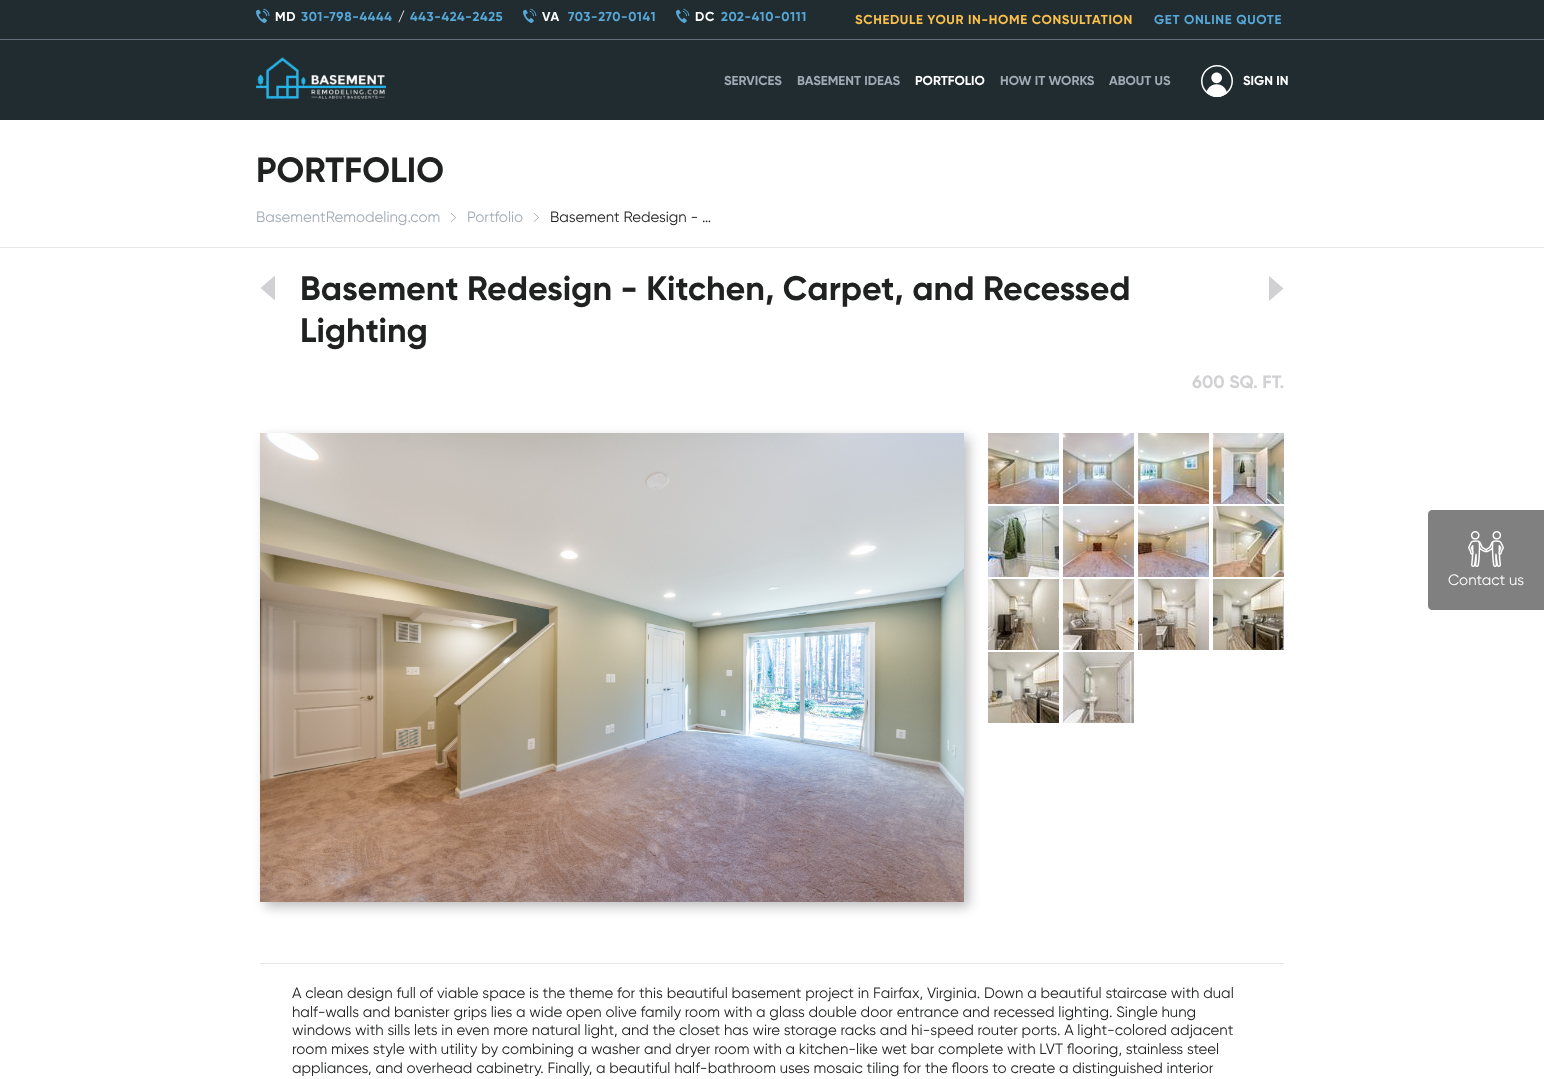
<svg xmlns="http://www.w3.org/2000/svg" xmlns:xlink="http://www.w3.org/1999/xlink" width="1544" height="1079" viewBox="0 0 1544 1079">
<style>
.cls-1{font:bold 13px Gilroy;letter-spacing:0.65px;fill:#ffffff}
.cls-2{font:bold 13px Gilroy;letter-spacing:0.65px;fill:#57a7d7}
.cls-3{font:bold 13px Gilroy;letter-spacing:0.65px;fill:#fac04b}
.cls-4{font:bold 13px Gilroy;fill:#a1abb5}
.cls-5{font:bold 13px Gilroy;fill:#ffffff}
.cls-6{font:bold 35px Gilroy;fill:#202121}
.cls-7{font:15px Gilroy;fill:#a1abb5}
.cls-8{font:15px Gilroy;fill:#202121}
.cls-9{font:bold 34px Gilroy;fill:#202121}
.cls-10{font:bold 18px Gilroy;fill:#d1d1d3}
.cls-11{font:15px Gilroy;fill:#ffffff}
</style>
<rect width="100%" height="100%" fill="#ffffff"/>
<rect fill="#212c30" x="0" y="0" width="1544" height="120"/>
<rect fill="#616d7b" x="0" y="39" width="1544" height="1"/>
<image xlink:href="image0.png" x="256" y="8" width="14" height="15"/>
<image xlink:href="image1.png" x="523" y="8" width="14" height="15"/>
<image xlink:href="image1.png" x="676" y="8" width="14" height="15"/>
<image xlink:href="image2.png" x="256" y="57" width="130" height="42"/>
<image xlink:href="image3.png" x="1201" y="65" width="32" height="32"/>
<rect fill="#e7e7e8" x="0" y="247" width="1544" height="1"/>
<image xlink:href="image4.png" x="451" y="213" width="5" height="9"/>
<image xlink:href="image5.png" x="534" y="213" width="5" height="9"/>
<path fill="#d1d1d3" d="M275 275.5V300.5L260.5 288Z"/>
<path fill="#d1d1d3" d="M1269 301V276L1283.5 288.5Z"/>
<rect fill="#e7e7e8" x="260" y="963" width="1024" height="1"/>
<rect fill="#000000" fill-opacity="0.25" filter="blur(6px)" x="265" y="438" width="704" height="469"/>
<image xlink:href="image6.png" x="260" y="433" width="704" height="469"/>
<image xlink:href="image7.png" x="988" y="433" width="71" height="71"/>
<image xlink:href="image8.png" x="1063" y="433" width="71" height="71"/>
<image xlink:href="image9.png" x="1138" y="433" width="71" height="71"/>
<image xlink:href="image10.png" x="1213" y="433" width="71" height="71"/>
<image xlink:href="image11.png" x="988" y="506" width="71" height="71"/>
<image xlink:href="image12.png" x="1063" y="506" width="71" height="71"/>
<image xlink:href="image13.png" x="1138" y="506" width="71" height="71"/>
<image xlink:href="image14.png" x="1213" y="506" width="71" height="71"/>
<image xlink:href="image15.png" x="988" y="579" width="71" height="71"/>
<image xlink:href="image16.png" x="1063" y="579" width="71" height="71"/>
<image xlink:href="image17.png" x="1138" y="579" width="71" height="71"/>
<image xlink:href="image18.png" x="1213" y="579" width="71" height="71"/>
<image xlink:href="image19.png" x="988" y="652" width="71" height="71"/>
<image xlink:href="image20.png" x="1063" y="652" width="71" height="71"/>
<path fill="#808080" d="M1432 510H1544V610H1432C1430 610 1428 608 1428 606V514C1428 512 1430 510 1432 510Z"/>
<image xlink:href="image21.png" x="1468" y="531" width="36" height="36"/>
<text class="cls-1" x="275" y="21">MD</text>
<text class="cls-2" x="301" y="21">301-798-4444</text>
<text class="cls-1" x="398" y="21">/</text>
<text class="cls-2" x="410" y="21">443-424-2425</text>
<text class="cls-1" x="542" y="21">VA</text>
<text class="cls-2" x="568" y="21">703-270-0141</text>
<text class="cls-1" x="695" y="21">DC</text>
<text class="cls-2" x="721" y="21">202-410-0111</text>
<text class="cls-3" x="855" y="24">SCHEDULE YOUR IN-HOME CONSULTATION</text>
<text class="cls-2" x="1154" y="24">GET ONLINE QUOTE</text>
<text class="cls-4" x="724" y="85">SERVICES</text>
<text class="cls-4" x="797" y="85">BASEMENT IDEAS</text>
<text class="cls-5" x="915" y="85">PORTFOLIO</text>
<text class="cls-4" x="1000" y="85">HOW IT WORKS</text>
<text class="cls-4" x="1109" y="85">ABOUT US</text>
<text class="cls-5" x="1243" y="85">SIGN IN</text>
<text class="cls-6" x="256" y="182">PORTFOLIO</text>
<text class="cls-7" x="256" y="222">BasementRemodeling.com</text>
<text class="cls-7" x="467" y="222">Portfolio</text>
<text class="cls-8" x="550" y="222">Basement Redesign - …</text>
<text class="cls-9"><tspan x="300" y="300">Basement Redesign - Kitchen, Carpet, and Recessed</tspan><tspan x="300" y="342">Lighting</tspan></text>
<text class="cls-10" x="1192" y="388">600 SQ. FT.</text>
<text class="cls-8"><tspan x="292" y="998">A clean design full of viable space is the theme for this beautiful basement project in Fairfax, Virginia. Down a beautiful staircase with dual</tspan><tspan x="292" y="1017">half-walls and banister grips lies a wide open olive family room with a glass double door entrance and recessed lighting. Single hung</tspan><tspan x="292" y="1035">windows with sills lets in even more natural light, and the closet has wire storage racks and hi-speed router ports. A light-colored adjacent</tspan><tspan x="292" y="1054">room mixes style with utility by combining a washer and dryer room with a kitchen-like wet bar complete with LVT flooring, stainless steel</tspan><tspan x="292" y="1073">appliances, and overhead cabinetry. Finally, a beautiful half-bathroom uses mosaic tiling for the floors to create a distinguished interior</tspan></text>
<text class="cls-11" x="1448" y="585">Contact us</text>
</svg>
